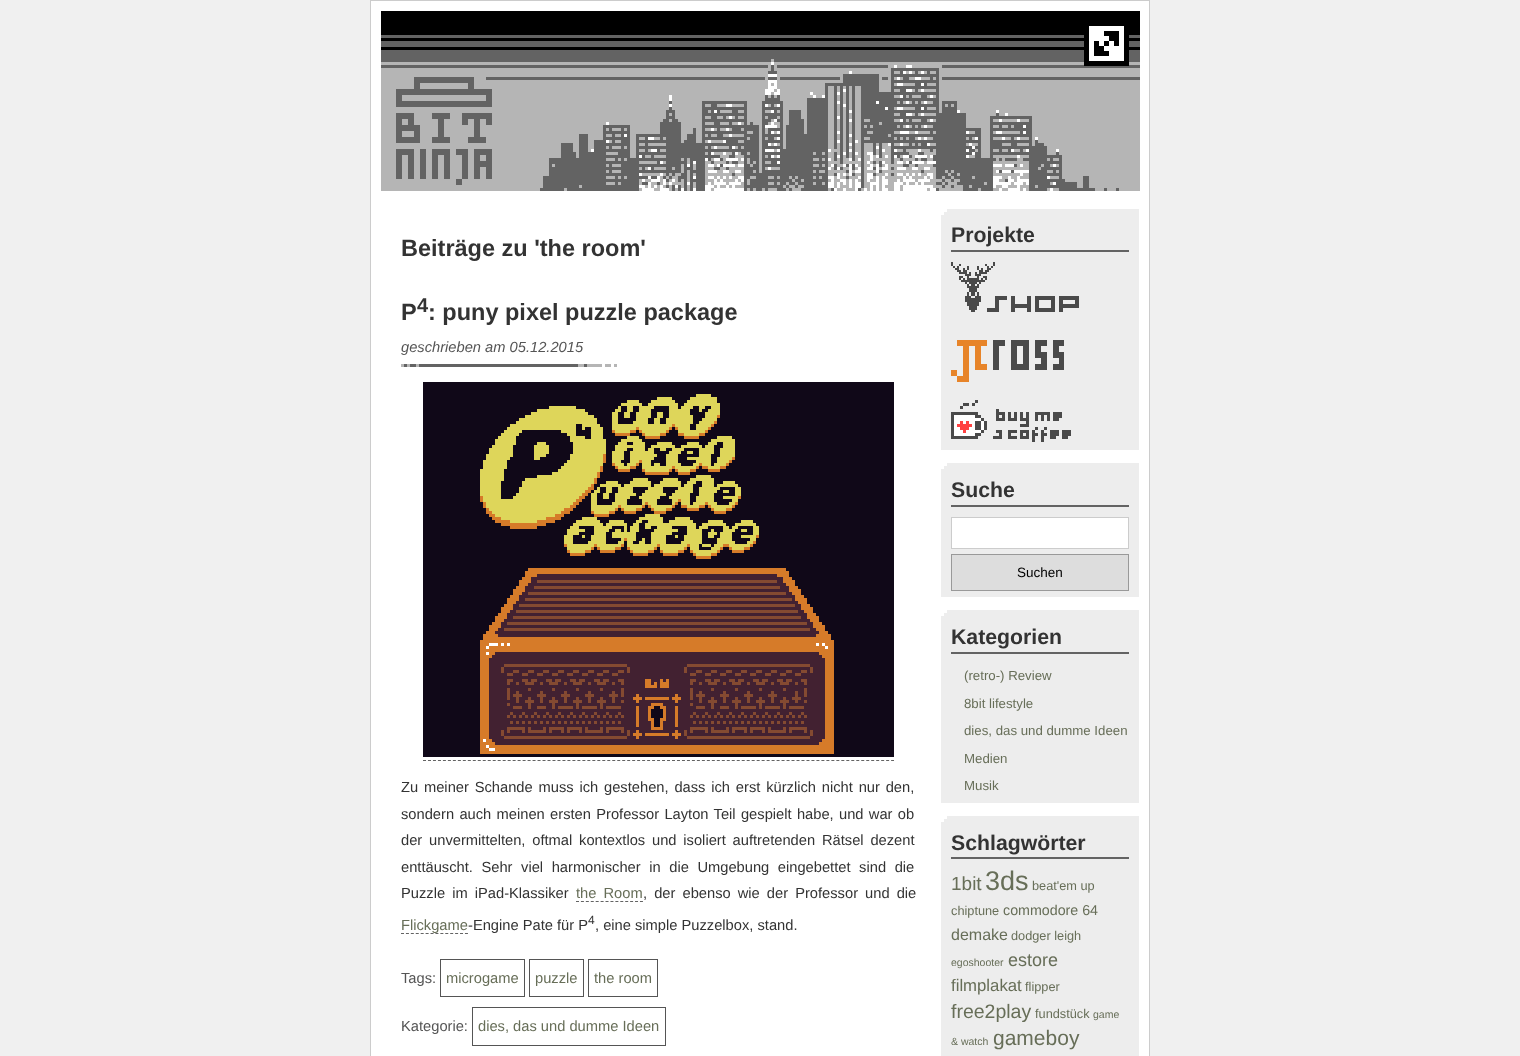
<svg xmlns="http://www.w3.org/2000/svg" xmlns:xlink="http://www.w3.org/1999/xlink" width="1520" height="1056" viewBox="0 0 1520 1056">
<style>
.cls-1{font:bold 23.5px Liberation Sans;fill:#333333}
.cls-2{font:bold 20px Liberation Sans;fill:#333333}
.cls-3{font:italic 14.7px Liberation Sans;fill:#555555}
.cls-4{font:14.7px Liberation Sans;fill:#333333}
.cls-5{font:14.7px Liberation Sans;fill:#676e58}
.cls-6{font:12px Liberation Sans;fill:#333333}
.cls-7{font:14.7px Liberation Sans;fill:#555555}
.cls-8{font:bold 21.25px Liberation Sans;fill:#333333}
.cls-9{font:13.5px Liberation Sans;fill:#000000}
.cls-10{font:13.25px Liberation Sans;fill:#676e58}
.cls-11{font:19px Liberation Sans;fill:#676e58}
.cls-12{font:27px Liberation Sans;fill:#676e58}
.cls-13{font:12.75px Liberation Sans;fill:#676e58}
.cls-14{font:14.25px Liberation Sans;fill:#676e58}
.cls-15{font:16px Liberation Sans;fill:#676e58}
.cls-16{font:10.5px Liberation Sans;fill:#676e58}
.cls-17{font:18px Liberation Sans;fill:#676e58}
.cls-18{font:16.75px Liberation Sans;fill:#676e58}
.cls-19{font:19.5px Liberation Sans;fill:#676e58}
.cls-20{font:21px Liberation Sans;fill:#676e58}
</style>
<rect width="100%" height="100%" fill="#f0f0f0"/>
<rect fill="#ffffff" stroke="#cccccc" x="370.5" y="0.5" width="779" height="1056"/>
<image xlink:href="image0.png" x="381" y="11" width="759" height="180"/>
<image xlink:href="image1.png" x="1084" y="21" width="45" height="45"/>
<image xlink:href="image2.png" x="401" y="364" width="216" height="3"/>
<image xlink:href="image3.png" x="423" y="382" width="471" height="375"/>
<path fill="none" stroke="#636363" stroke-dasharray="3 1.98" d="M423 760.5H894"/>
<path fill="none" stroke="#636363" stroke-dasharray="3 1.92" d="M576 901.5H643"/>
<path fill="none" stroke="#636363" stroke-dasharray="3 1.92" d="M401 933.5H468"/>
<rect fill="none" stroke="#555555" x="440.5" y="959.5" width="84" height="37"/>
<rect fill="none" stroke="#555555" x="529.5" y="959.5" width="54" height="37"/>
<rect fill="none" stroke="#555555" x="588.5" y="959.5" width="69" height="37"/>
<rect fill="none" stroke="#555555" x="472.5" y="1007.5" width="193" height="38"/>
<rect fill="#ededed" x="941" y="209" width="198" height="241"/>
<image xlink:href="image4.png" x="941" y="209" width="6" height="6"/>
<rect fill="#636363" x="951" y="250" width="178" height="2"/>
<image xlink:href="image5.png" x="951" y="262" width="128" height="50"/>
<image xlink:href="image6.png" x="951" y="340" width="113" height="42"/>
<image xlink:href="image7.png" x="951" y="400" width="120" height="42"/>
<rect fill="#ededed" x="941" y="463" width="198" height="134"/>
<image xlink:href="image4.png" x="941" y="463" width="6" height="6"/>
<rect fill="#636363" x="951" y="505" width="178" height="2"/>
<rect fill="#ffffff" stroke="#cccccc" x="951.5" y="517.5" width="177" height="31"/>
<rect fill="#dddddd" stroke="#999999" x="951.5" y="554.5" width="177" height="36"/>
<rect fill="#ededed" x="941" y="610" width="198" height="193"/>
<image xlink:href="image4.png" x="941" y="610" width="6" height="6"/>
<rect fill="#636363" x="951" y="652" width="178" height="2"/>
<rect fill="#ededed" x="941" y="816" width="198" height="240"/>
<image xlink:href="image4.png" x="941" y="816" width="6" height="6"/>
<rect fill="#636363" x="951" y="857" width="178" height="2"/>
<text class="cls-1" x="401" y="256">Beiträge zu 'the room'</text>
<text class="cls-1" x="401" y="320">P</text>
<text class="cls-2" x="417" y="312">4</text>
<text class="cls-1" x="428" y="320">: puny pixel puzzle package</text>
<text class="cls-3" x="401" y="352">geschrieben am 05.12.2015</text>
<text class="cls-4"><tspan x="401" y="792" word-spacing="1.75">Zu meiner Schande muss ich gestehen, dass ich erst kürzlich nicht nur den,</tspan><tspan x="401" y="819" word-spacing="1.25">sondern auch meinen ersten Professor Layton Teil gespielt habe, und war ob</tspan><tspan x="401" y="845" word-spacing="2.75">der unvermittelten, oftmal kontextlos und isoliert auftretenden Rätsel dezent</tspan><tspan x="401" y="872" word-spacing="4.5">enttäuscht. Sehr viel harmonischer in die Umgebung eingebettet sind die</tspan><tspan x="401" y="898" word-spacing="3">Puzzle im iPad-Klassiker</tspan></text>
<text class="cls-5" x="576" y="898" word-spacing="3">the Room</text>
<text class="cls-4" x="643" y="898" word-spacing="3">, der ebenso wie der Professor und die</text>
<text class="cls-5" x="401" y="930">Flickgame</text>
<text class="cls-4" x="468" y="930">-Engine Pate für P</text>
<text class="cls-6" x="588" y="924">4</text>
<text class="cls-4" x="595" y="930">, eine simple Puzzelbox, stand.</text>
<text class="cls-7" x="401" y="983">Tags:</text>
<text class="cls-5" x="446" y="983">microgame</text>
<text class="cls-5" x="535" y="983">puzzle</text>
<text class="cls-5" x="594" y="983">the room</text>
<text class="cls-7" x="401" y="1031">Kategorie:</text>
<text class="cls-5" x="478" y="1031">dies, das und dumme Ideen</text>
<text class="cls-8" x="951" y="242">Projekte</text>
<text class="cls-8" x="951" y="497">Suche</text>
<text class="cls-9" x="1017" y="577">Suchen</text>
<text class="cls-8" x="951" y="644">Kategorien</text>
<text class="cls-10" x="964" y="680">(retro-) Review</text>
<text class="cls-10" x="964" y="708">8bit lifestyle</text>
<text class="cls-10" x="964" y="735">dies, das und dumme Ideen</text>
<text class="cls-10" x="964" y="763">Medien</text>
<text class="cls-10" x="964" y="790">Musik</text>
<text class="cls-8" x="951" y="850">Schlagwörter</text>
<text class="cls-11" x="951" y="890">1bit</text>
<text class="cls-12" x="985" y="890">3ds</text>
<text class="cls-13" x="1032" y="890">beat'em up</text>
<text class="cls-13" x="951" y="915">chiptune</text>
<text class="cls-14" x="1003" y="915">commodore 64</text>
<text class="cls-15" x="951" y="940">demake</text>
<text class="cls-13" x="1011" y="940">dodger leigh</text>
<text class="cls-16" x="951" y="966">egoshooter</text>
<text class="cls-17" x="1008" y="966">estore</text>
<text class="cls-18" x="951" y="991">filmplakat</text>
<text class="cls-13" x="1025" y="991">flipper</text>
<text class="cls-19" x="951" y="1018">free2play</text>
<text class="cls-13" x="1035" y="1018">fundstück</text>
<text class="cls-16" x="1093" y="1018">game</text>
<text class="cls-16" x="951" y="1045">&amp; watch</text>
<text class="cls-20" x="993" y="1045">gameboy</text>
</svg>
